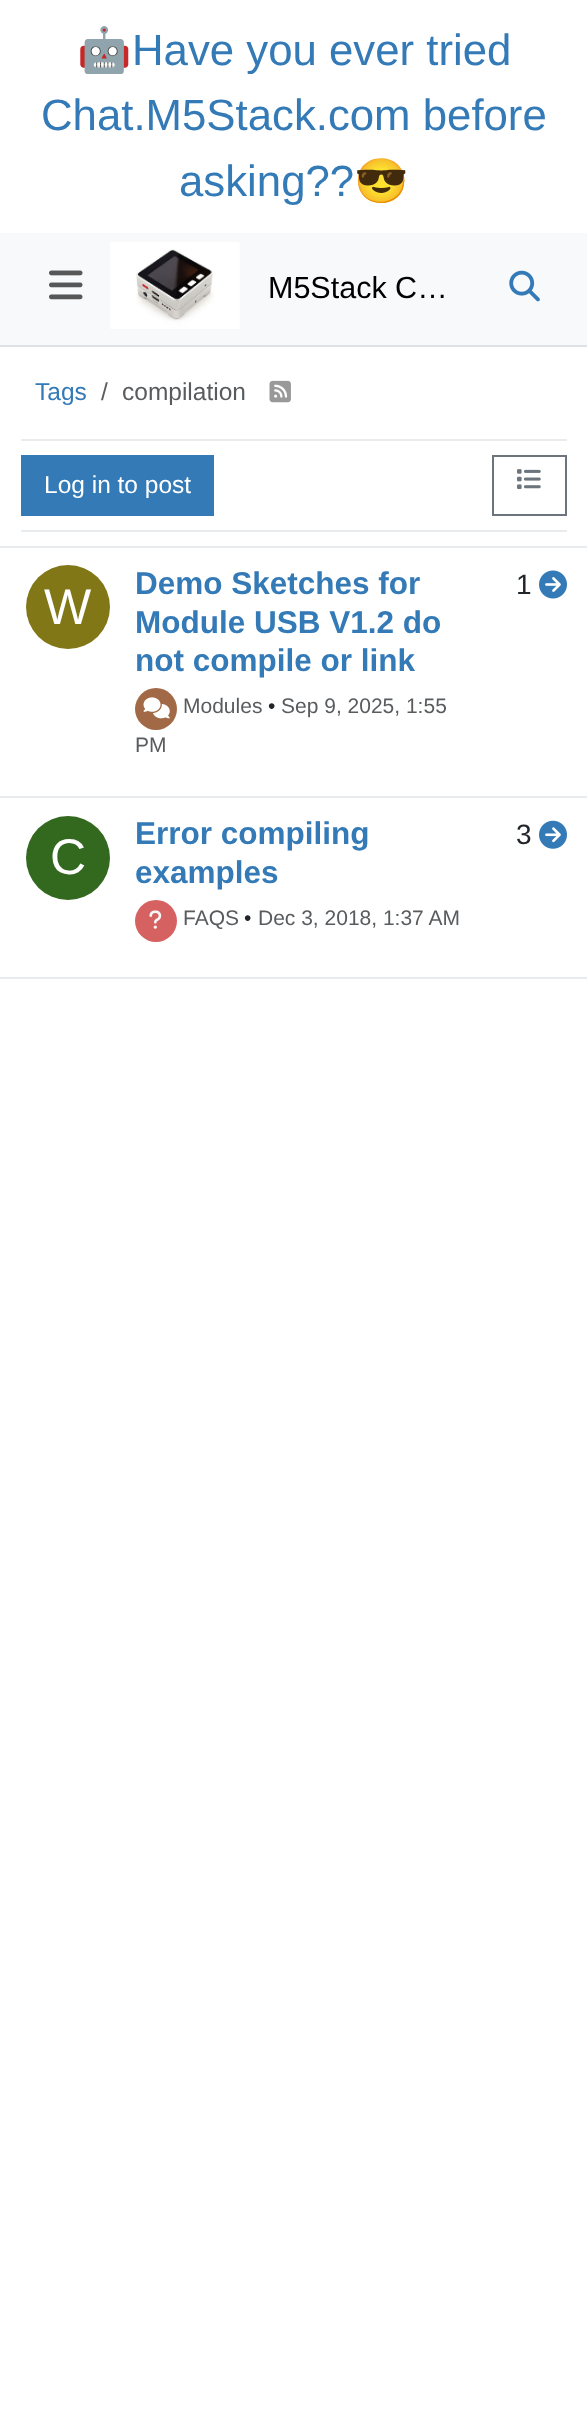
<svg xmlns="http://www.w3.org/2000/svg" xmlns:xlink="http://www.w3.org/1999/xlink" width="587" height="2426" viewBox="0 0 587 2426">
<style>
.cls-1{font:43.75px Noto Color Emoji;fill:#337ab7}
.cls-2{font:43.75px Liberation Sans;fill:#337ab7}
.cls-3{font:30.5px Liberation Sans;fill:#000000}
.cls-4{font:24.5px Liberation Sans;fill:#337ab7}
.cls-5{font:24.5px Liberation Sans;fill:#595c5f}
.cls-6{font:24.5px Liberation Sans;fill:#ffffff}
.cls-7{font:50px Liberation Sans;fill:#ffffff}
.cls-8{font:bold 31.5px Liberation Sans;fill:#337ab7}
.cls-9{font:21px Liberation Sans;fill:#595c5f}
.cls-10{font:21px Liberation Sans;fill:#212529}
.cls-11{font:28px Liberation Sans;fill:#212529}
</style>
<rect width="100%" height="100%" fill="#ffffff"/>
<rect fill="#f8f9fa" x="0" y="233" width="587" height="112"/>
<rect fill="#dee2e6" x="0" y="345" width="587" height="2"/>
<image xlink:href="image0.png" x="49" y="270" width="34" height="30"/>
<image xlink:href="image1.png" x="110" y="242" width="130" height="87"/>
<image xlink:href="image2.png" x="509" y="270" width="31" height="32"/>
<image xlink:href="image3.png" x="269" y="380" width="22" height="23"/>
<rect fill="#e9ecef" x="21" y="439" width="546" height="2"/>
<rect fill="#e9ecef" x="21" y="530" width="546" height="2"/>
<rect fill="#337ab7" x="21" y="455" width="193" height="61"/>
<rect fill="none" stroke="#6c757d" stroke-width="2" x="493" y="456" width="73" height="59"/>
<image xlink:href="image4.png" x="517" y="469" width="24" height="20"/>
<rect fill="#e9ecef" x="0" y="546" width="587" height="2"/>
<circle fill="#827717" cx="68" cy="607" r="42"/>
<circle fill="#a16946" cx="156" cy="709" r="21"/>
<image xlink:href="image5.png" x="143" y="697" width="27" height="22"/>
<image xlink:href="image6.png" x="539" y="570" width="28" height="29"/>
<rect fill="#e9ecef" x="0" y="796" width="587" height="2"/>
<rect fill="#e9ecef" x="0" y="977" width="587" height="2"/>
<circle fill="#33691e" cx="68" cy="858" r="42"/>
<circle fill="#d66161" cx="156" cy="921" r="21"/>
<image xlink:href="image7.png" x="149" y="910" width="13" height="19"/>
<image xlink:href="image8.png" x="539" y="820" width="28" height="29"/>
<text class="cls-1" x="77" y="65">🤖</text>
<text class="cls-2" x="132" y="65">Have you ever tried</text>
<text class="cls-2" x="41" y="130">Chat.M5Stack.com before</text>
<text class="cls-2" x="179" y="196">asking??</text>
<text class="cls-1" x="354" y="196">😎</text>
<text class="cls-3" x="268" y="298">M5Stack C…</text>
<text class="cls-4" x="35" y="400">Tags</text>
<text class="cls-5" x="101" y="400">/</text>
<text class="cls-5" x="122" y="400">compilation</text>
<text class="cls-6" x="44" y="493">Log in to post</text>
<text class="cls-7" x="44" y="624">W</text>
<text class="cls-8"><tspan x="135" y="594">Demo Sketches for</tspan><tspan x="135" y="633">Module USB V1.2 do</tspan><tspan x="135" y="671">not compile or link</tspan></text>
<text class="cls-9" x="183" y="713">Modules</text>
<text class="cls-10" x="268" y="713">•</text>
<text class="cls-9" x="281" y="713">Sep 9, 2025, 1:55</text>
<text class="cls-9" x="135" y="752">PM</text>
<text class="cls-11" x="516" y="594">1</text>
<text class="cls-7" x="50" y="874">C</text>
<text class="cls-8"><tspan x="135" y="844">Error compiling</tspan><tspan x="135" y="883">examples</tspan></text>
<text class="cls-9" x="183" y="925">FAQS</text>
<text class="cls-10" x="244" y="925">•</text>
<text class="cls-9" x="258" y="925">Dec 3, 2018, 1:37 AM</text>
<text class="cls-11" x="516" y="844">3</text>
</svg>
